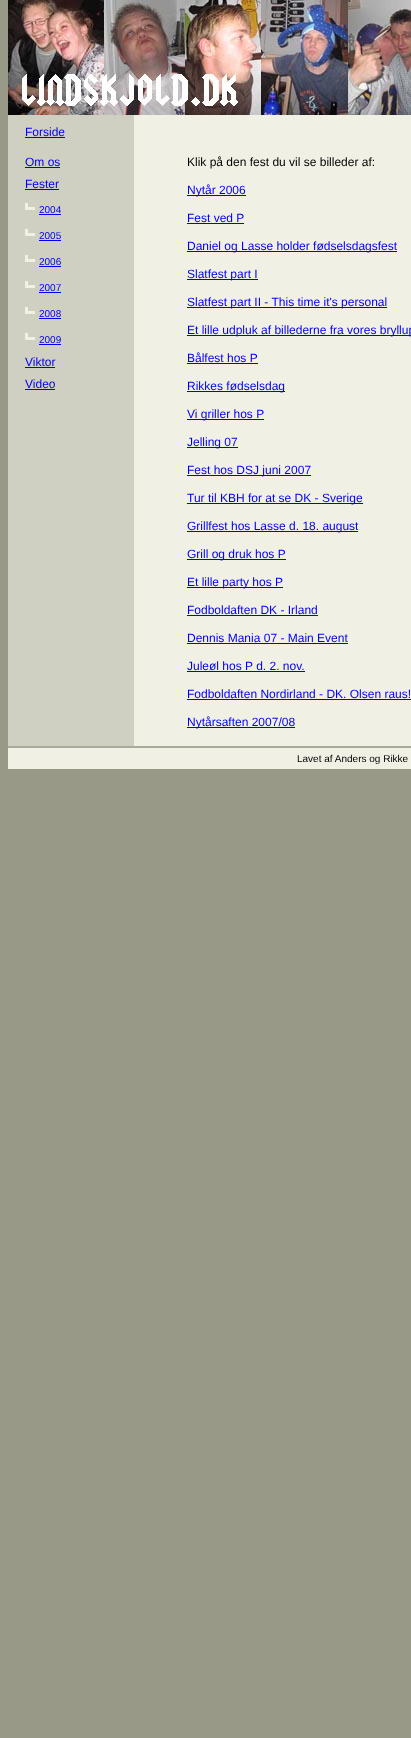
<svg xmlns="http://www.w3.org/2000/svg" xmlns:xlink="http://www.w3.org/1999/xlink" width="411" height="1738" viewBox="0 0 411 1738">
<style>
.cls-1{font:12px Liberation Sans;fill:#0000ee}
.cls-2{font:10px Liberation Sans;fill:#0000ee}
.cls-3{font:12px Liberation Sans;fill:#000000}
.cls-4{font:10px Liberation Sans;fill:#000000}
</style>
<rect width="100%" height="100%" fill="#999988"/>
<image xlink:href="image0.png" x="8" y="0" width="403" height="115"/>
<rect fill="#f1f0e5" x="134" y="115" width="277" height="631"/>
<rect fill="#d0d0c2" x="8" y="115" width="126" height="631"/>
<rect fill="#0000ee" x="25" y="137" width="40" height="1"/>
<rect fill="#0000ee" x="25" y="167" width="35" height="1"/>
<rect fill="#0000ee" x="25" y="189" width="34" height="1"/>
<image xlink:href="image1.png" x="25" y="203" width="10" height="7"/>
<rect fill="#0000ee" x="39" y="214" width="22" height="1"/>
<image xlink:href="image1.png" x="25" y="229" width="10" height="7"/>
<rect fill="#0000ee" x="39" y="240" width="22" height="1"/>
<image xlink:href="image1.png" x="25" y="255" width="10" height="7"/>
<rect fill="#0000ee" x="39" y="266" width="22" height="1"/>
<image xlink:href="image1.png" x="25" y="281" width="10" height="7"/>
<rect fill="#0000ee" x="39" y="292" width="22" height="1"/>
<image xlink:href="image1.png" x="25" y="307" width="10" height="7"/>
<rect fill="#0000ee" x="39" y="318" width="22" height="1"/>
<image xlink:href="image1.png" x="25" y="333" width="10" height="7"/>
<rect fill="#0000ee" x="39" y="344" width="22" height="1"/>
<rect fill="#0000ee" x="25" y="367" width="30" height="1"/>
<rect fill="#0000ee" x="25" y="389" width="30" height="1"/>
<rect fill="#0000ee" x="187" y="195" width="59" height="1"/>
<rect fill="#0000ee" x="187" y="223" width="57" height="1"/>
<rect fill="#0000ee" x="187" y="251" width="210" height="1"/>
<rect fill="#0000ee" x="187" y="279" width="71" height="1"/>
<rect fill="#0000ee" x="187" y="307" width="200" height="1"/>
<rect fill="#0000ee" x="187" y="335" width="224" height="1"/>
<rect fill="#0000ee" x="187" y="363" width="71" height="1"/>
<rect fill="#0000ee" x="187" y="391" width="98" height="1"/>
<rect fill="#0000ee" x="187" y="419" width="77" height="1"/>
<rect fill="#0000ee" x="187" y="447" width="51" height="1"/>
<rect fill="#0000ee" x="187" y="475" width="124" height="1"/>
<rect fill="#0000ee" x="187" y="503" width="176" height="1"/>
<rect fill="#0000ee" x="187" y="531" width="171" height="1"/>
<rect fill="#0000ee" x="187" y="559" width="99" height="1"/>
<rect fill="#0000ee" x="187" y="587" width="96" height="1"/>
<rect fill="#0000ee" x="187" y="615" width="131" height="1"/>
<rect fill="#0000ee" x="187" y="643" width="161" height="1"/>
<rect fill="#0000ee" x="187" y="671" width="118" height="1"/>
<rect fill="#0000ee" x="187" y="699" width="224" height="1"/>
<rect fill="#0000ee" x="187" y="727" width="108" height="1"/>
<rect fill="#aaaa99" x="8" y="746" width="403" height="2"/>
<rect fill="#f1f0e5" x="8" y="748" width="403" height="21"/>
<text class="cls-1" x="25" y="136">Forside</text>
<text class="cls-1"><tspan x="25" y="166">Om os</tspan><tspan x="25" y="188">Fester</tspan></text>
<text class="cls-2" x="39" y="213">2004</text>
<text class="cls-2" x="39" y="239">2005</text>
<text class="cls-2" x="39" y="265">2006</text>
<text class="cls-2" x="39" y="291">2007</text>
<text class="cls-2" x="39" y="317">2008</text>
<text class="cls-2" x="39" y="343">2009</text>
<text class="cls-1"><tspan x="25" y="366">Viktor</tspan><tspan x="25" y="388">Video</tspan></text>
<text class="cls-3" x="187" y="166">Klik på den fest du vil se billeder af:</text>
<text class="cls-1" x="187" y="194">Nytår 2006</text>
<text class="cls-1" x="187" y="222">Fest ved P</text>
<text class="cls-1" x="187" y="250">Daniel og Lasse holder fødselsdagsfest</text>
<text class="cls-1" x="187" y="278">Slatfest part I</text>
<text class="cls-1" x="187" y="306">Slatfest part II - This time it's personal</text>
<text class="cls-1" x="187" y="334">Et lille udpluk af billederne fra vores bryllup</text>
<text class="cls-1" x="187" y="362">Bålfest hos P</text>
<text class="cls-1" x="187" y="390">Rikkes fødselsdag</text>
<text class="cls-1" x="187" y="418">Vi griller hos P</text>
<text class="cls-1" x="187" y="446">Jelling 07</text>
<text class="cls-1" x="187" y="474">Fest hos DSJ juni 2007</text>
<text class="cls-1" x="187" y="502">Tur til KBH for at se DK - Sverige</text>
<text class="cls-1" x="187" y="530">Grillfest hos Lasse d. 18. august</text>
<text class="cls-1" x="187" y="558">Grill og druk hos P</text>
<text class="cls-1" x="187" y="586">Et lille party hos P</text>
<text class="cls-1" x="187" y="614">Fodboldaften DK - Irland</text>
<text class="cls-1" x="187" y="642">Dennis Mania 07 - Main Event</text>
<text class="cls-1" x="187" y="670">Juleøl hos P d. 2. nov.</text>
<text class="cls-1" x="187" y="698">Fodboldaften Nordirland - DK. Olsen raus!</text>
<text class="cls-1" x="187" y="726">Nytårsaften 2007/08</text>
<text class="cls-4" x="297" y="762">Lavet af Anders og Rikke</text>
</svg>
